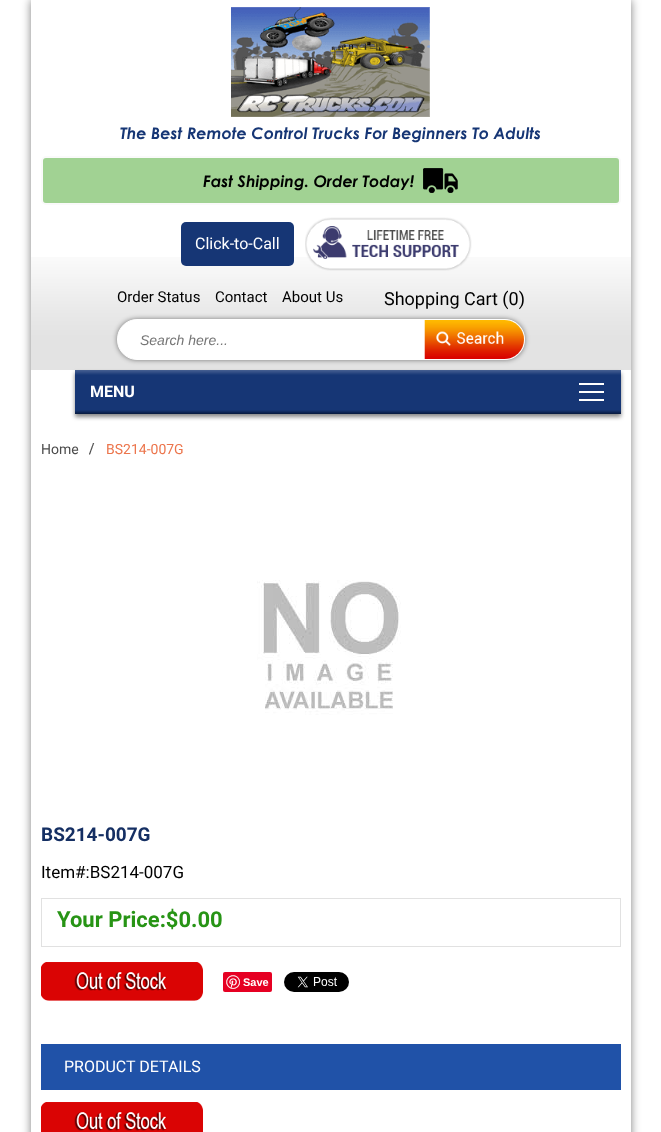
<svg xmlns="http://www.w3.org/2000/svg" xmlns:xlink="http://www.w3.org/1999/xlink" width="661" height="1132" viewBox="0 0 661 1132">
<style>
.cls-1{font:italic bold 16px Century Gothic;fill:#163675}
.cls-2{font:italic bold 16px Century Gothic;fill:#000000}
.cls-3{font:16px Roboto;fill:#ffffff}
.cls-4{font:15px Roboto;fill:#000000}
.cls-5{font:18px Roboto;fill:#000000}
.cls-6{font:italic 14px Liberation Sans;fill:#757575}
.cls-7{font:bold 16px Roboto;fill:#ffffff}
.cls-8{font:14px Roboto;fill:#4c4c4c}
.cls-9{font:14px Roboto;fill:#ec754c}
.cls-10{font:bold 19px Roboto;fill:#152f63}
.cls-11{font:17px Roboto;fill:#000000}
.cls-12{font:bold 22px Roboto;fill:#279415}
.cls-13{font:bold 11px Liberation Sans;fill:#ffffff}
</style>
<defs>
<clipPath id="clip1"><path d="M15 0H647V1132H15ZM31 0H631V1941H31Z" clip-rule="evenodd"/></clipPath>
</defs>
<rect width="100%" height="100%" fill="#ffffff"/>
<g clip-path="url(#clip1)">
<rect fill="#000000" fill-opacity="0.5" filter="blur(5px)" x="31" y="0" width="600" height="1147"/>
</g>
<image xlink:href="image0.png" x="31" y="257" width="600" height="113"/>
<image xlink:href="image1.png" x="231" y="7" width="199" height="110"/>
<rect fill="#a1d293" stroke="#fafafa" stroke-width="2" x="42" y="157" width="578" height="47" rx="4"/>
<image xlink:href="image2.png" x="423" y="168" width="35" height="25"/>
<rect fill="#163675" x="181" y="222" width="113" height="44" rx="5"/>
<image xlink:href="image3.png" x="305" y="217" width="167" height="54"/>
<rect fill="#000000" fill-opacity="0.48" filter="blur(2.5px)" x="117" y="319" width="408" height="41" rx="20"/>
<rect fill="#ffffff" stroke="#ffffff" x="117.5" y="319.5" width="407" height="40" rx="19.5"/>
<image xlink:href="image4.png" x="424" y="320" width="101" height="39"/>
<rect fill="#000000" fill-opacity="0.47" filter="blur(2px)" x="75" y="373" width="546" height="44"/>
<image xlink:href="image5.png" x="75" y="370" width="546" height="44"/>
<rect fill="#ffffff" x="579" y="383" width="25" height="2"/>
<rect fill="#ffffff" x="579" y="391" width="25" height="2"/>
<rect fill="#ffffff" x="579" y="399" width="25" height="2"/>
<image xlink:href="image6.png" x="89" y="443" width="6" height="12"/>
<image xlink:href="image7.png" x="257" y="580" width="144" height="135"/>
<rect fill="none" stroke="#e1e1e1" x="41.5" y="898.5" width="579" height="48"/>
<image xlink:href="image8.png" x="41" y="962" width="162" height="39"/>
<rect fill="#e60023" x="223" y="972" width="49" height="20" rx="2"/>
<image xlink:href="image9.png" x="226" y="975" width="14" height="14"/>
<image xlink:href="image10.png" x="284" y="972" width="65" height="20"/>
<rect fill="#2052a8" x="41" y="1044" width="580" height="46"/>
<image xlink:href="image11.png" x="41" y="1102" width="162" height="30"/>
<text class="cls-1" x="120" y="139">The Best Remote Control Trucks For Beginners To Adults</text>
<text class="cls-2" x="203" y="187">Fast Shipping. Order Today!</text>
<text class="cls-3" x="195" y="249">Click-to-Call</text>
<text class="cls-4" x="117" y="302">Order Status</text>
<text class="cls-4" x="215" y="302">Contact</text>
<text class="cls-4" x="282" y="302">About Us</text>
<text class="cls-5" x="384" y="305">Shopping Cart (0)</text>
<text class="cls-6" x="140" y="345">Search here...</text>
<text class="cls-7" x="90" y="397">MENU</text>
<text class="cls-8" x="41" y="454">Home</text>
<text class="cls-9" x="106" y="454">BS214-007G</text>
<text class="cls-10" x="41" y="841">BS214-007G</text>
<text class="cls-11" x="41" y="878">Item#:BS214-007G</text>
<text class="cls-12" x="57" y="927">Your Price:$0.00</text>
<text class="cls-13" x="243" y="986">Save</text>
<text class="cls-3" x="64" y="1072">PRODUCT DETAILS</text>
</svg>
